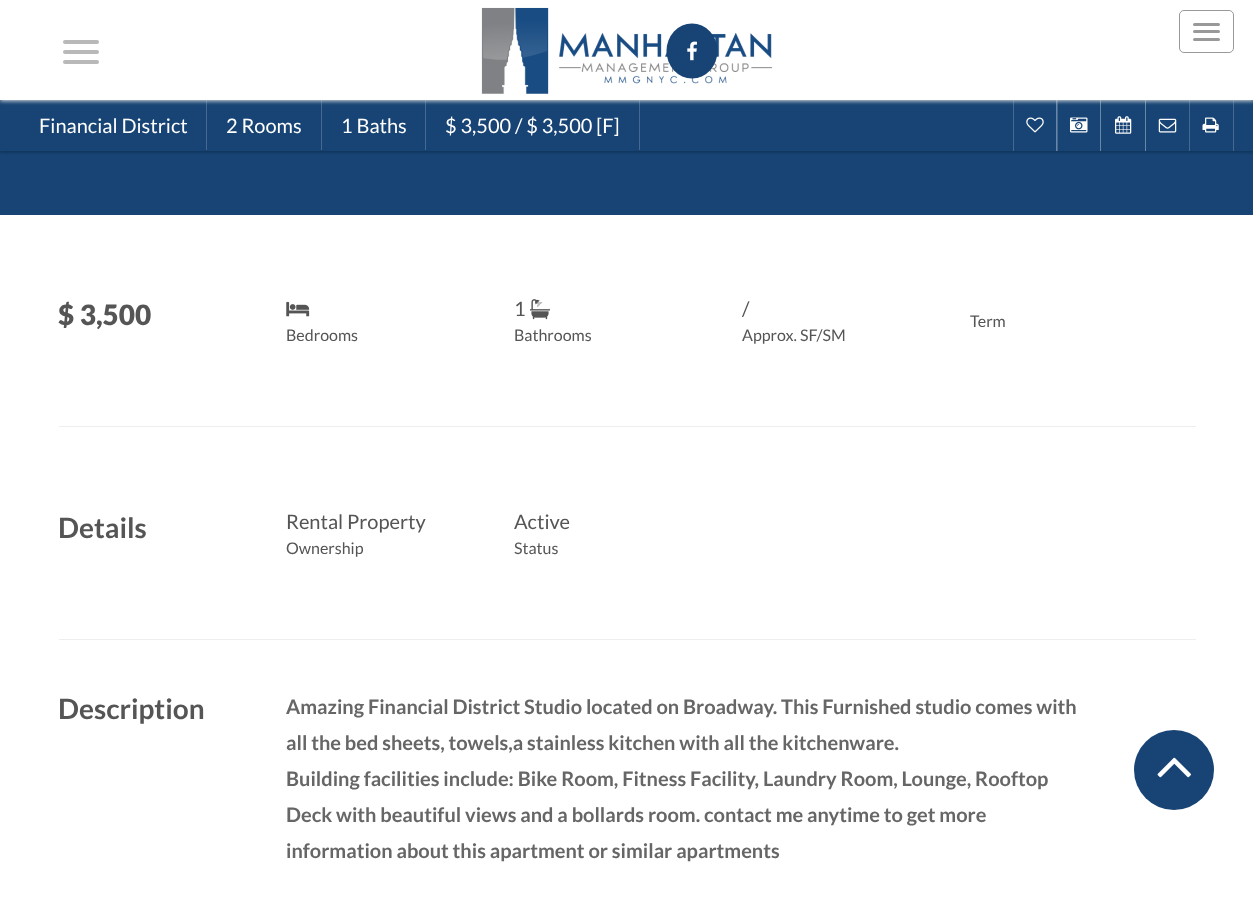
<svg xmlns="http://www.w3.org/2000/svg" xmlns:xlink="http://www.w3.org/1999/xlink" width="1253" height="899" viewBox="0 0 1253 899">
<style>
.cls-1{font:20px Lato;fill:#ffffff}
.cls-2{font:900 28px Lato;fill:#555555}
.cls-3{font:20px Lato;fill:#555555}
.cls-4{font:16px Lato;fill:#555555}
.cls-5{font:bold 28px Lato;fill:#555555}
.cls-6{font:bold 20px Lato;fill:#666666}
</style>
<rect width="100%" height="100%" fill="#ffffff"/>
<rect fill="#174474" x="0" y="151" width="1253" height="64"/>
<rect fill="#000000" fill-opacity="0.2" filter="blur(1px)" x="0" y="101" width="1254" height="52"/>
<rect fill="#174474" x="0" y="100" width="1253" height="51"/>
<rect fill="#456990" x="206" y="100" width="1" height="50"/>
<rect fill="#456990" x="321" y="100" width="1" height="50"/>
<rect fill="#456990" x="425" y="100" width="1" height="50"/>
<rect fill="#456990" x="639" y="100" width="1" height="50"/>
<rect fill="#456990" x="1013" y="100" width="1" height="51"/>
<rect fill="#6a87a6" x="1056" y="100" width="1" height="51"/>
<rect fill="#456990" x="1057" y="100" width="1" height="51"/>
<rect fill="#6a87a6" x="1100" y="100" width="1" height="51"/>
<rect fill="#6a87a6" x="1145" y="100" width="1" height="51"/>
<rect fill="#456990" x="1189" y="100" width="1" height="51"/>
<rect fill="#456990" x="1233" y="100" width="1" height="51"/>
<rect fill="#dddddd" filter="blur(2px)" x="0" y="1" width="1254" height="100"/>
<rect fill="#ffffff" x="0" y="0" width="1253" height="100"/>
<image xlink:href="image0.png" x="481" y="7" width="292" height="87"/>
<rect fill="none" stroke="#999999" x="1179.5" y="10.5" width="54" height="42" rx="4.5"/>
<rect fill="#999999" x="1193" y="23" width="27" height="3" rx="1.5"/>
<rect fill="#999999" x="1193" y="30" width="27" height="3" rx="1.5"/>
<rect fill="#999999" x="1193" y="38" width="27" height="3" rx="1.5"/>
<rect fill="#b9b9b9" x="63" y="40" width="36" height="4" rx="2"/>
<rect fill="#b9b9b9" x="63" y="50" width="36" height="4" rx="2"/>
<rect fill="#b9b9b9" x="63" y="60" width="36" height="4" rx="2"/>
<ellipse fill="#174474" cx="692" cy="51" rx="25.5" ry="27.5"/>
<image xlink:href="image1.png" x="687" y="41" width="10" height="20"/>
<image xlink:href="image2.png" x="1026" y="117" width="18" height="16"/>
<image xlink:href="image3.png" x="1070" y="117" width="18" height="16"/>
<image xlink:href="image4.png" x="1115" y="116" width="17" height="18"/>
<image xlink:href="image5.png" x="1158" y="118" width="19" height="15"/>
<image xlink:href="image6.png" x="1202" y="117" width="17" height="16"/>
<image xlink:href="image7.png" x="530" y="299" width="20" height="21"/>
<image xlink:href="image8.png" x="286" y="301" width="24" height="16"/>
<rect fill="#eeeeee" x="59" y="426" width="1137" height="1"/>
<rect fill="#eeeeee" x="59" y="639" width="1137" height="1"/>
<circle fill="#174474" cx="1174" cy="770" r="40"/>
<image xlink:href="image9.png" x="1157" y="757" width="34" height="21"/>
<text class="cls-1" x="39" y="133">Financial District</text>
<text class="cls-1" x="226" y="133">2 Rooms</text>
<text class="cls-1" x="341" y="133">1 Baths</text>
<text class="cls-1" x="445" y="133">$ 3,500 / $ 3,500 [F]</text>
<text class="cls-2" x="58" y="325">$ 3,500</text>
<text class="cls-3" x="514" y="316">1</text>
<text class="cls-4" x="514" y="341">Bathrooms</text>
<text class="cls-3" x="742" y="316">/</text>
<text class="cls-4" x="742" y="341">Approx. SF/SM</text>
<text class="cls-4" x="970" y="327">Term</text>
<text class="cls-4" x="286" y="341">Bedrooms</text>
<text class="cls-5" x="58" y="538">Details</text>
<text class="cls-3" x="286" y="529">Rental Property</text>
<text class="cls-4" x="286" y="554">Ownership</text>
<text class="cls-3" x="514" y="529">Active</text>
<text class="cls-4" x="514" y="554">Status</text>
<text class="cls-5" x="58" y="719">Description</text>
<text class="cls-6"><tspan x="286" y="714">Amazing Financial District Studio located on Broadway. This Furnished studio comes with</tspan><tspan x="286" y="750">all the bed sheets, towels,a stainless kitchen with all the kitchenware.</tspan><tspan x="286" y="786">Building facilities include: Bike Room, Fitness Facility, Laundry Room, Lounge, Rooftop</tspan><tspan x="286" y="822">Deck with beautiful views and a bollards room. contact me anytime to get more</tspan><tspan x="286" y="858">information about this apartment or similar apartments</tspan></text>
</svg>
